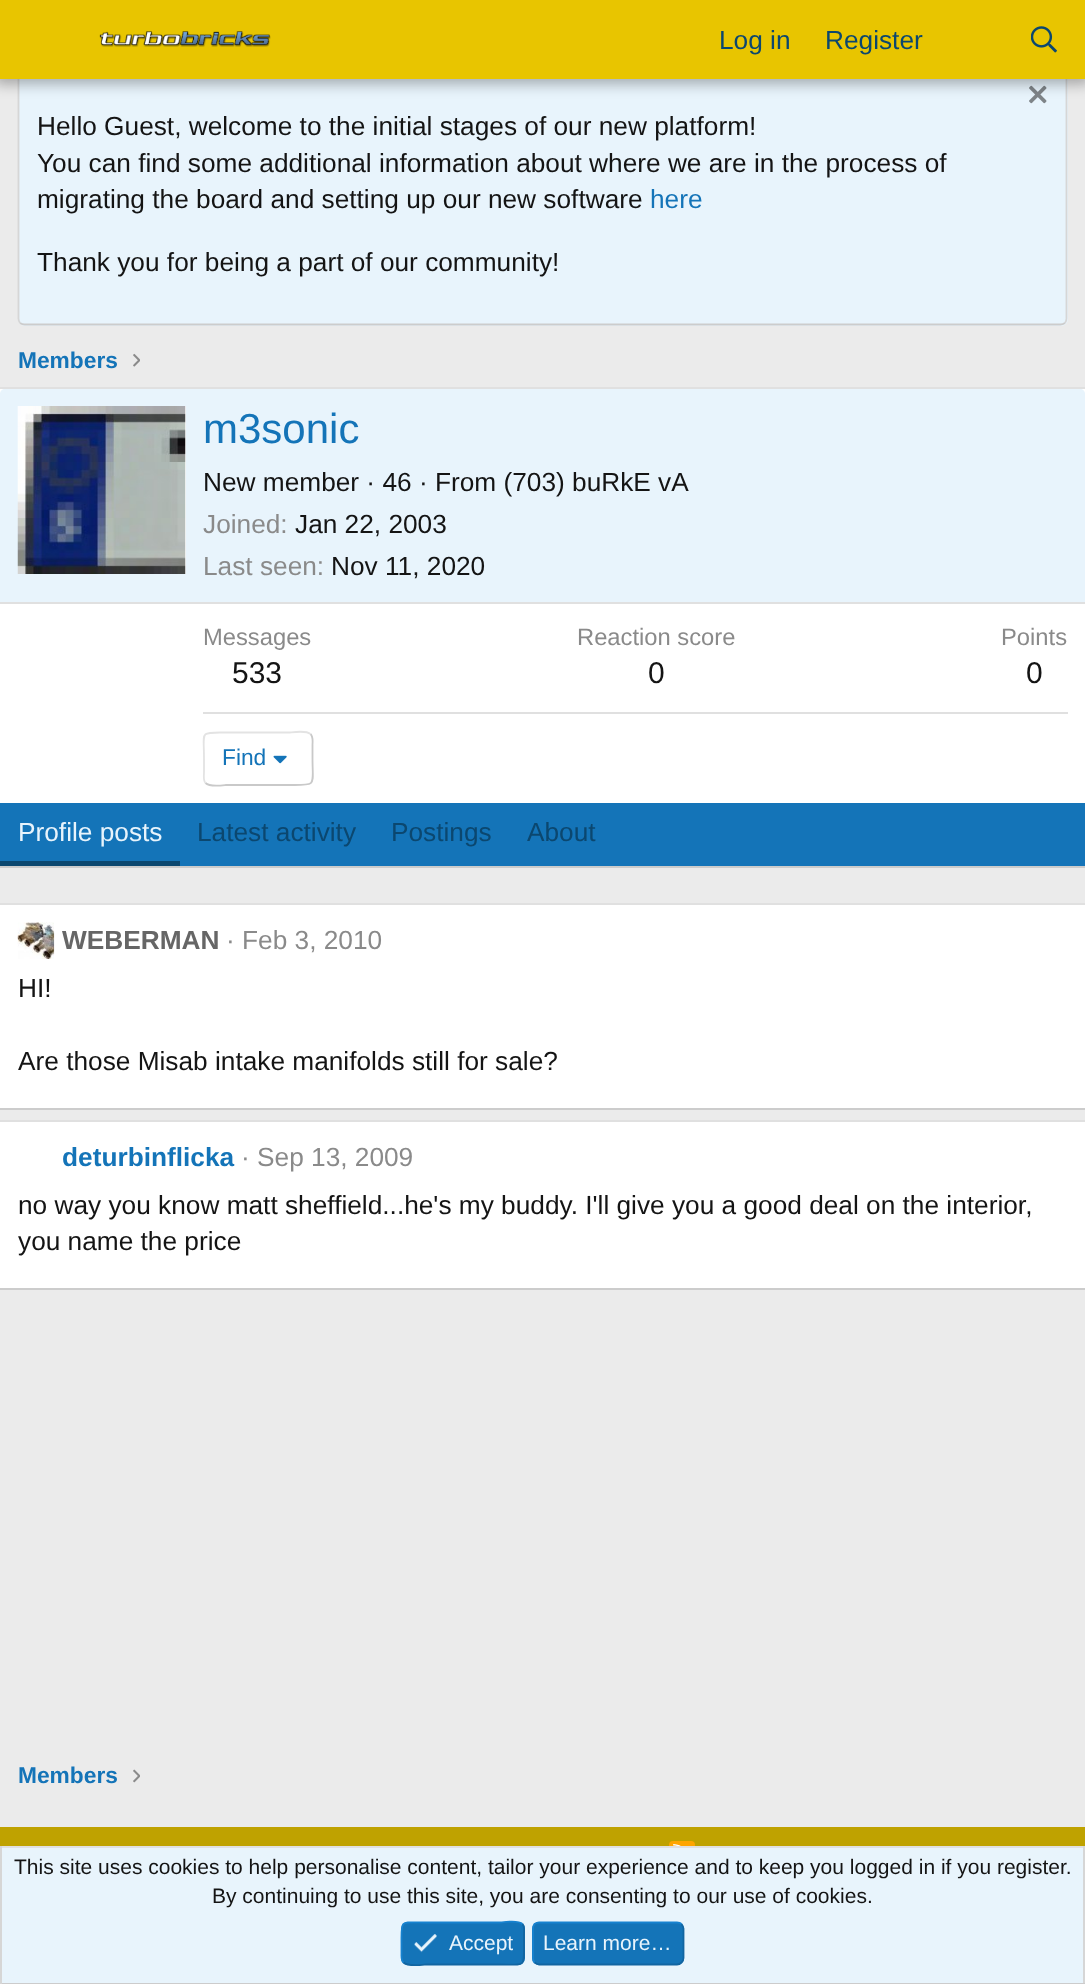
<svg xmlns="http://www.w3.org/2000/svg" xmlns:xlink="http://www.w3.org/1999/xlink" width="1085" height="1984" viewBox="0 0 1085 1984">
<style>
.cls-1{font:26.25px Liberation Sans;fill:#0b476f}
.cls-2{font:26.25px Liberation Sans;fill:#141414}
.cls-3{font:26.25px Liberation Sans;fill:#1474b8}
.cls-4{font:bold 22.75px Liberation Sans;fill:#1474b8}
.cls-5{font:42px Liberation Sans;fill:#1474b8}
.cls-6{font:26.25px Liberation Sans;fill:#8a8a8a}
.cls-7{font:23.75px Liberation Sans;fill:#8a8a8a}
.cls-8{font:30px Liberation Sans;fill:#141414}
.cls-9{font:22.75px Liberation Sans;fill:#1474b8}
.cls-10{font:26.25px Liberation Sans;fill:#e8f4fc}
.cls-11{font:bold 26.25px Liberation Sans;fill:#666666}
.cls-12{font:bold 26.25px Liberation Sans;fill:#1474b8}
.cls-13{font:21px Liberation Sans;fill:#141414}
.cls-14{font:21px Liberation Sans;fill:#e8f4fc}
</style>
<rect width="100%" height="100%" fill="#ebebeb"/>
<rect fill="#e8f4fc" x="18" y="61" width="1050" height="265" rx="7"/>
<path fill="none" stroke="#d6d6d6" stroke-width="1.8" d="M1065 64C1066 65 1066.5 66.5 1066.5 68V318.5C1066.5 320 1066 321.5 1065 323"/>
<path fill="none" stroke="#cccccc" stroke-width="1.8" d="M1065 323C1063.5 324 1062 324.5 1060.5 324.5H24.5C23 324.5 21.5 324 20 323"/>
<path fill="none" stroke="#d6d6d6" stroke-width="1.8" d="M20 323C19 321.5 18.5 320 18.5 318.5V68C18.5 66.5 19 65 20 64"/>
<image xlink:href="image2.png" x="1029" y="85" width="18" height="19"/>
<rect fill="#000000" fill-opacity="0.3" filter="blur(7px)" x="-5" y="-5" width="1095" height="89"/>
<rect fill="#e8c500" x="0" y="0" width="1085" height="79"/>
<image xlink:href="image0.png" x="99" y="31" width="172" height="16"/>
<image xlink:href="image1.png" x="1031" y="26" width="26" height="27"/>
<image xlink:href="image3.png" x="133" y="353" width="7" height="14"/>
<rect fill="#ffffff" x="0" y="389" width="1085" height="414"/>
<rect fill="#e0e0e0" x="0" y="387" width="1085" height="2"/>
<rect fill="#cccccc" x="0" y="866" width="1085" height="2"/>
<path fill="#e8f4fc" d="M5 389H1080C1083 389 1085 391 1085 394V604H0V394C0 391 2 389 5 389Z"/>
<rect fill="#e0e0e0" x="0" y="602" width="1085" height="2"/>
<rect fill="#ffffff" x="185" y="406" width="1" height="168"/>
<image xlink:href="image4.png" x="17" y="406" width="169" height="168"/>
<rect fill="#e0e0e0" x="203" y="712" width="865" height="2"/>
<path fill="none" stroke="#c9c9c9" stroke-width="1.8" d="M310.5 734C313.5 737 312.5 742 312.5 745V758.5C312.5 786.5 317.5 785 290 785H226C225 785 210 787.5 205.5 783"/>
<path fill="none" stroke="#e3e3e3" stroke-width="1.8" d="M205.5 783C203 780.5 204 775.5 204 772V758.5C204 730.5 199 732.5 226 732.5H290C291 732.5 306 730 310.5 734"/>
<image xlink:href="image5.png" x="273" y="755" width="14" height="9"/>
<rect fill="#1474b8" x="0" y="803" width="1085" height="63"/>
<rect fill="#0b476f" x="0" y="861" width="180" height="5"/>
<rect fill="#ffffff" x="0" y="905" width="1085" height="203"/>
<rect fill="#e0e0e0" x="0" y="903" width="1085" height="2"/>
<rect fill="#cccccc" x="0" y="1108" width="1085" height="2"/>
<image xlink:href="image6.png" x="17" y="922" width="38" height="37"/>
<rect fill="#ffffff" x="0" y="1122" width="1085" height="166"/>
<rect fill="#e0e0e0" x="0" y="1120" width="1085" height="2"/>
<rect fill="#cccccc" x="0" y="1288" width="1085" height="2"/>
<image xlink:href="image7.png" x="133" y="1769" width="7" height="14"/>
<rect fill="#bfa200" x="0" y="1827" width="1085" height="19"/>
<rect fill="#ffa500" x="669" y="1841" width="26" height="26" rx="4"/>
<image xlink:href="image8.png" x="673" y="1844" width="8" height="2"/>
<rect fill="#e8f4fc" x="2" y="1848" width="1081" height="135"/>
<rect fill="#e0e0e0" x="0" y="1846" width="1085" height="2"/>
<rect fill="#d6d6d6" x="1083" y="1846" width="2" height="138"/>
<rect fill="#cccccc" x="0" y="1983" width="1085" height="1"/>
<rect fill="#d6d6d6" x="0" y="1846" width="2" height="138"/>
<rect fill="#1474b8" x="401" y="1922" width="124" height="43" rx="7"/>
<path fill="none" stroke="#1265a1" stroke-width="1.8" d="M522.5 1924C525 1926.5 524 1930.5 524 1933.5V1943.5C524 1968 526 1964.5 499.5 1964.5H426C424.5 1964.5 408 1967 403.5 1962.5"/>
<path fill="none" stroke="#1782cf" stroke-width="1.8" d="M403.5 1962.5C401 1960 401.5 1956.5 401.5 1953.5V1943.5C401.5 1918.5 399.5 1922.5 426 1922.5H499.5C501.5 1922.5 518 1919.5 522.5 1924"/>
<image xlink:href="image9.png" x="414" y="1934" width="23" height="19"/>
<rect fill="#1474b8" x="532" y="1922" width="152" height="43" rx="7"/>
<path fill="none" stroke="#1265a1" stroke-width="1.8" d="M681.5 1924C682.5 1925.5 683.5 1927 683.5 1928.5V1958C683.5 1960 682.5 1961.5 681.5 1962.5C680.5 1963.5 679 1964.5 677 1964.5H539C537.5 1964.5 536 1963.5 534.5 1962.5"/>
<path fill="none" stroke="#1782cf" stroke-width="1.8" d="M534.5 1962.5C533.5 1961.5 533 1960 533 1958V1928.5C533 1927 533.5 1925.5 534.5 1924C536 1923 537.5 1922.5 539 1922.5H677C679 1922.5 680.5 1923 681.5 1924"/>
<text class="cls-1" x="719" y="49">Log in</text>
<text class="cls-1" x="825" y="49">Register</text>
<text class="cls-2"><tspan x="37" y="135">Hello Guest, welcome to the initial stages of our new platform!</tspan><tspan x="37" y="172">You can find some additional information about where we are in the process of</tspan><tspan x="37" y="208">migrating the board and setting up our new software</tspan></text>
<text class="cls-3" x="650" y="208">here</text>
<text class="cls-2" x="37" y="271">Thank you for being a part of our community!</text>
<text class="cls-4" x="18" y="368">Members</text>
<text class="cls-5" x="203" y="443">m3sonic</text>
<text class="cls-2" x="203" y="491">New member · 46 · From (703) buRkE vA</text>
<text class="cls-6" x="203" y="533">Joined:</text>
<text class="cls-2" x="295" y="533">Jan 22, 2003</text>
<text class="cls-6" x="203" y="575">Last seen:</text>
<text class="cls-2" x="331" y="575">Nov 11, 2020</text>
<text class="cls-7" x="203" y="645">Messages</text>
<text class="cls-8" x="232" y="683">533</text>
<text class="cls-7" x="577" y="645">Reaction score</text>
<text class="cls-8" x="648" y="683">0</text>
<text class="cls-7" x="1001" y="645">Points</text>
<text class="cls-8" x="1026" y="683">0</text>
<text class="cls-9" x="222" y="765">Find</text>
<text class="cls-10" x="18" y="841">Profile posts</text>
<text class="cls-1" x="197" y="841">Latest activity</text>
<text class="cls-1" x="391" y="841">Postings</text>
<text class="cls-1" x="527" y="841">About</text>
<text class="cls-11" x="62" y="949">WEBERMAN</text>
<text class="cls-6" x="226" y="949">· Feb 3, 2010</text>
<text class="cls-2" x="18" y="997">HI!</text>
<text class="cls-2" x="18" y="1070">Are those Misab intake manifolds still for sale?</text>
<text class="cls-12" x="62" y="1166">deturbinflicka</text>
<text class="cls-6" x="241" y="1166">· Sep 13, 2009</text>
<text class="cls-2"><tspan x="18" y="1214">no way you know matt sheffield...he's my buddy. I'll give you a good deal on the interior,</tspan><tspan x="18" y="1250">you name the price</tspan></text>
<text class="cls-4" x="18" y="1783">Members</text>
<text class="cls-13" x="14" y="1874">This site uses cookies to help personalise content, tailor your experience and to keep you logged in if you register.</text>
<text class="cls-13" x="212" y="1903">By continuing to use this site, you are consenting to our use of cookies.</text>
<text class="cls-14" x="449" y="1950">Accept</text>
<text class="cls-14" x="543" y="1950">Learn more…</text>
</svg>
